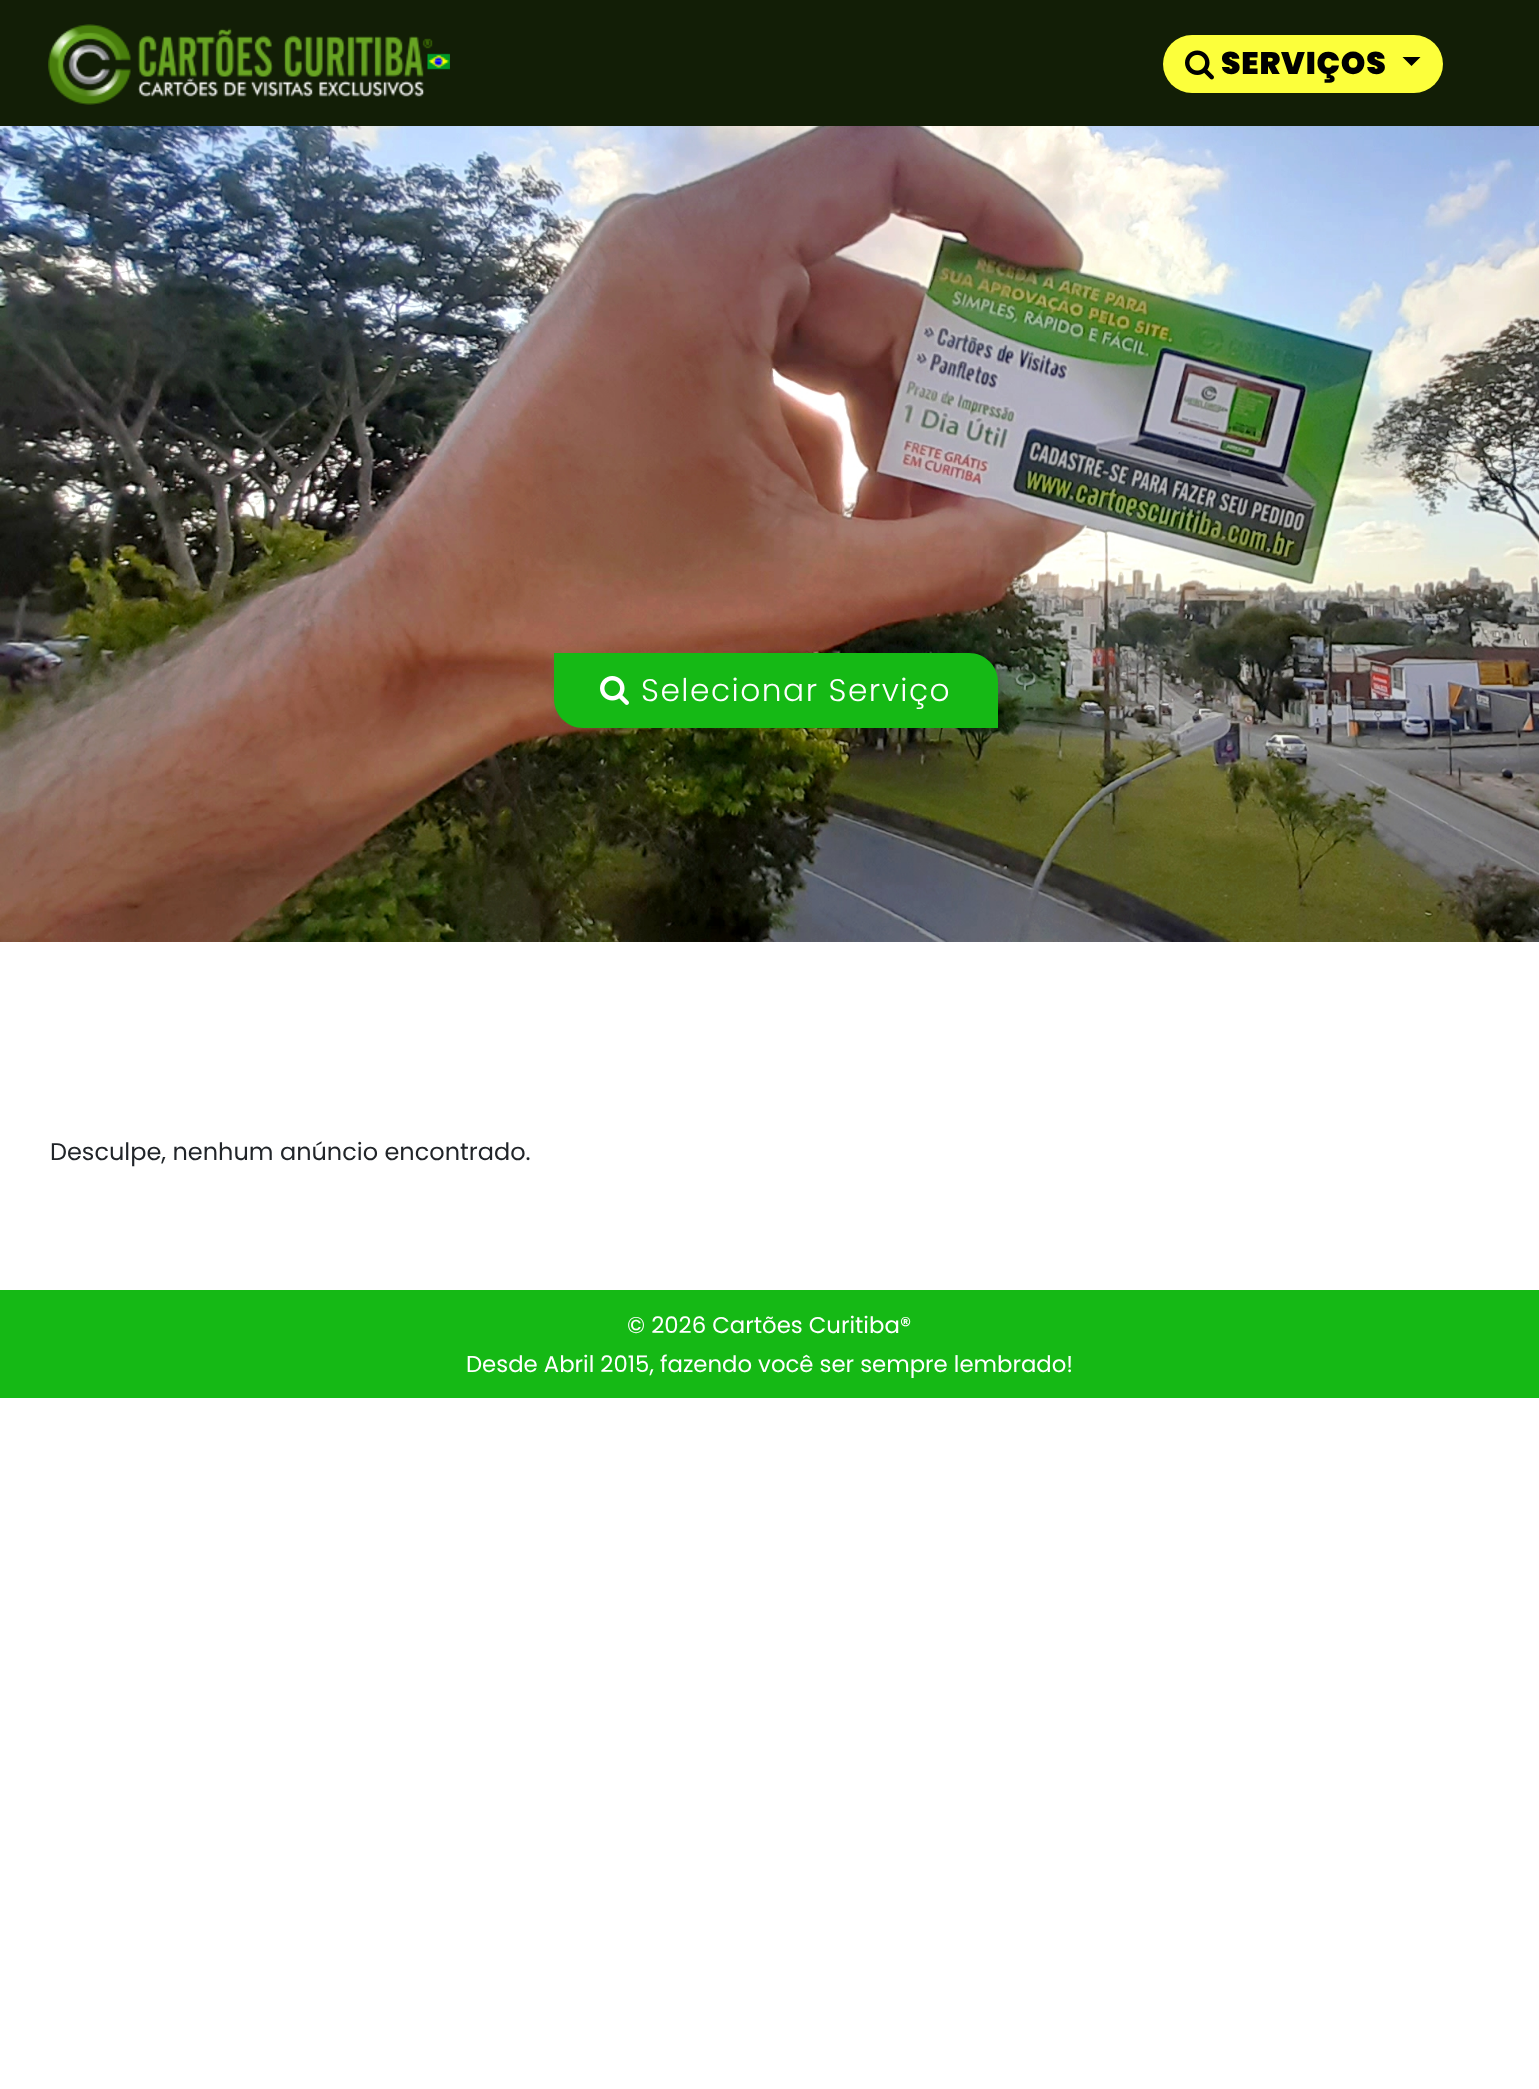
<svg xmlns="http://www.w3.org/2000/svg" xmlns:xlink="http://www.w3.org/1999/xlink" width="1539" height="2089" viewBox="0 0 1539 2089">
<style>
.cls-1{font:900 31.25px Poppins;letter-spacing:0.75px;fill:#000000}
.cls-2{font:300 31.25px Poppins;letter-spacing:1.5px;fill:#ffffff}
.cls-3{font:24px Poppins;fill:#212529}
.cls-4{font:22.8px Poppins;fill:#ffffff}
</style>
<rect width="100%" height="100%" fill="#ffffff"/>
<image xlink:href="image0.png" x="0" y="126" width="1539" height="816"/>
<rect fill="#121e06" x="0" y="0" width="1539" height="126"/>
<image xlink:href="image1.png" x="48" y="24" width="402" height="81"/>
<rect fill="#fcff3b" x="1163" y="35" width="280" height="58" rx="29"/>
<image xlink:href="image2.png" x="1185" y="50" width="29" height="30"/>
<path fill="#000000" d="M1402.5 57H1420.5L1411.5 66Z"/>
<path fill="#15b915" d="M554 653H969C985 653 998 666 998 682V728H583C567 728 554 715 554 699Z"/>
<image xlink:href="image3.png" x="600" y="676" width="29" height="29"/>
<rect fill="#15b915" x="0" y="1290" width="1539" height="108"/>
<text class="cls-1" x="1221" y="74">SERVIÇOS</text>
<text class="cls-2" x="641" y="701">Selecionar Serviço</text>
<text class="cls-3" x="50" y="1160">Desculpe, nenhum anúncio encontrado.</text>
<text class="cls-4" x="627" y="1333">© 2026 Cartões Curitiba®</text>
<text class="cls-4" x="466" y="1372">Desde Abril 2015, fazendo você ser sempre lembrado!</text>
</svg>
